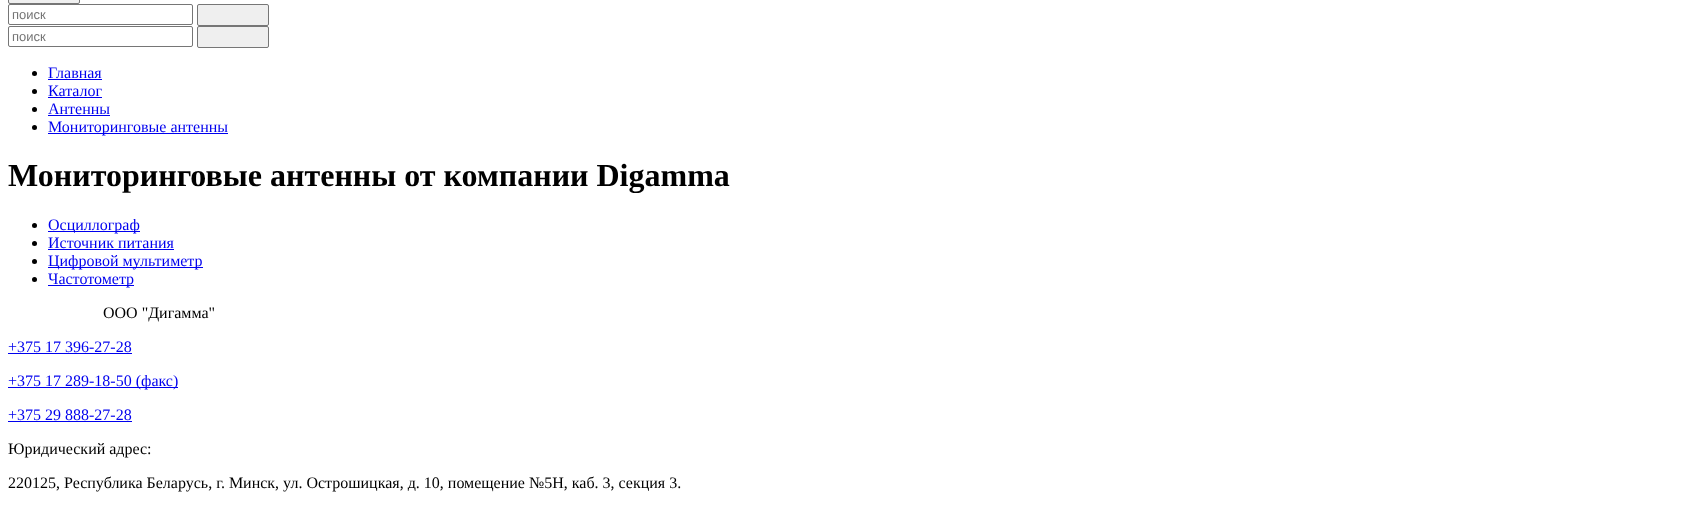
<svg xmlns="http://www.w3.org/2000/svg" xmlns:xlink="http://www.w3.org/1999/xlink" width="1706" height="506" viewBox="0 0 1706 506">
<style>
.cls-1{font:13px Liberation Sans;fill:#757575}
.cls-2{font:16px Liberation Serif;fill:#0000ee}
.cls-3{font:bold 32px Liberation Serif;fill:#000000}
.cls-4{font:16px Liberation Serif;fill:#000000}
</style>
<rect width="100%" height="100%" fill="#ffffff"/>
<rect fill="#efefef" stroke="#767676" x="8.5" y="-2.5" width="71" height="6" rx="1.5"/>
<rect fill="none" stroke="#767676" x="8.5" y="4.5" width="184" height="20" rx="1.5"/>
<rect fill="#efefef" stroke="#767676" x="197.5" y="4.5" width="71" height="21" rx="1.5"/>
<rect fill="none" stroke="#767676" x="8.5" y="26.5" width="184" height="20" rx="1.5"/>
<rect fill="#efefef" stroke="#767676" x="197.5" y="26.5" width="71" height="21" rx="1.5"/>
<circle fill="#000000" cx="34.5" cy="73.5" r="2.5"/>
<rect fill="#0000ee" x="48" y="79" width="54" height="1"/>
<circle fill="#000000" cx="34.5" cy="91.5" r="2.5"/>
<rect fill="#0000ee" x="48" y="97" width="54" height="1"/>
<circle fill="#000000" cx="34.5" cy="109.5" r="2.5"/>
<rect fill="#0000ee" x="48" y="115" width="62" height="1"/>
<circle fill="#000000" cx="34.5" cy="127.5" r="2.5"/>
<rect fill="#0000ee" x="48" y="133" width="180" height="1"/>
<circle fill="#000000" cx="34.5" cy="225.5" r="2.5"/>
<rect fill="#0000ee" x="48" y="231" width="92" height="1"/>
<circle fill="#000000" cx="34.5" cy="243.5" r="2.5"/>
<rect fill="#0000ee" x="48" y="249" width="126" height="1"/>
<circle fill="#000000" cx="34.5" cy="261.5" r="2.5"/>
<rect fill="#0000ee" x="48" y="267" width="155" height="1"/>
<circle fill="#000000" cx="34.5" cy="279.5" r="2.5"/>
<rect fill="#0000ee" x="48" y="285" width="86" height="1"/>
<rect fill="#0000ee" x="8" y="353" width="124" height="1"/>
<rect fill="#0000ee" x="8" y="387" width="170" height="1"/>
<rect fill="#0000ee" x="8" y="421" width="124" height="1"/>
<text class="cls-1"><tspan x="12" y="19">поиск</tspan><tspan x="12" y="41">поиск</tspan></text>
<text class="cls-2"><tspan x="48" y="78">Главная</tspan><tspan x="48" y="96">Каталог</tspan><tspan x="48" y="114">Антенны</tspan><tspan x="48" y="132">Мониторинговые антенны</tspan></text>
<text class="cls-3" x="8" y="186">Мониторинговые антенны от компании Digamma</text>
<text class="cls-2"><tspan x="48" y="230">Осциллограф</tspan><tspan x="48" y="248">Источник питания</tspan><tspan x="48" y="266">Цифровой мультиметр</tspan><tspan x="48" y="284">Частотометр</tspan></text>
<text class="cls-4" x="103" y="318">ООО "Дигамма"</text>
<text class="cls-2" x="8" y="352">+375 17 396-27-28</text>
<text class="cls-2" x="8" y="386">+375 17 289-18-50 (факс)</text>
<text class="cls-2" x="8" y="420">+375 29 888-27-28</text>
<text class="cls-4" x="8" y="454">Юридический адрес:</text>
<text class="cls-4" x="8" y="488">220125, Республика Беларусь, г. Минск, ул. Острошицкая, д. 10, помещение №5Н, каб. 3, секция 3.</text>
</svg>
